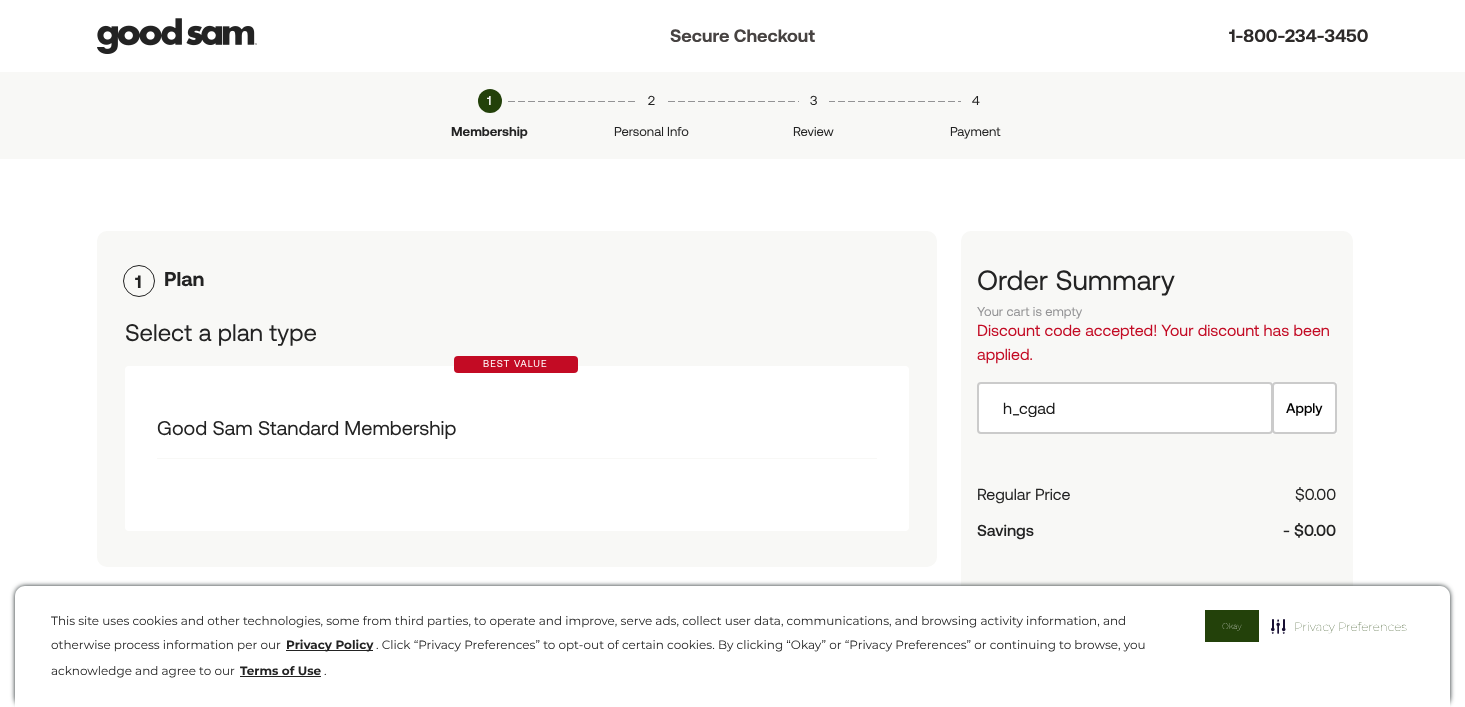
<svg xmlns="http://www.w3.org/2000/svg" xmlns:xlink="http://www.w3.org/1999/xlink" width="1465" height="707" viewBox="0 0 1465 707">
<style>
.cls-1{font:bold 18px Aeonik;fill:#474342}
.cls-2{font:bold 18px Aeonik;fill:#2d2a29}
.cls-3{font:500 13px Aeonik;fill:#ffffff}
.cls-4{font:bold 13px Aeonik;fill:#232323}
.cls-5{font:13px Aeonik;fill:#232323}
.cls-6{font:bold 18px Aeonik;fill:#232323}
.cls-7{font:bold 20px Aeonik;fill:#232323}
.cls-8{font:24px Aeonik;fill:#232323}
.cls-9{font:10px Aeonik;letter-spacing:1px;fill:#ffffff}
.cls-10{font:20px Aeonik;fill:#232323}
.cls-11{font:28px Aeonik;fill:#232323}
.cls-12{font:13px Aeonik;fill:#939395}
.cls-13{font:16px Aeonik;fill:#c30b24}
.cls-14{font:16px Aeonik;fill:#181818}
.cls-15{font:500 14px Aeonik;fill:#000000}
.cls-16{font:16px Aeonik;fill:#232323}
.cls-17{font:500 16px Aeonik;fill:#232323}
.cls-18{font:12px Montserrat;fill:#232323}
.cls-19{font:bold 12px Montserrat;fill:#232323}
.cls-20{font:100 8px Montserrat;fill:#ffffff}
.cls-21{font:100 12px Montserrat;fill:#23410a}
</style>
<defs>
<clipPath id="clip1"><rect x="1003" y="399" width="244" height="18"/></clipPath>
</defs>
<rect width="100%" height="100%" fill="#ffffff"/>
<image xlink:href="image0.png" x="97" y="18" width="160" height="36"/>
<rect fill="#f8f8f6" x="0" y="72" width="1465" height="87"/>
<image xlink:href="image1.png" x="508" y="101" width="453" height="1"/>
<circle fill="#23410a" cx="490" cy="101" r="12"/>
<rect fill="#f8f8f6" x="638" y="101" width="27" height="1"/>
<rect fill="#f8f8f6" x="799" y="101" width="30" height="1"/>
<rect fill="#f8f8f6" x="97" y="231" width="840" height="336" rx="10"/>
<circle fill="none" stroke="#232323" cx="139" cy="281" r="15.5"/>
<rect fill="#ffffff" x="125" y="366" width="784" height="165" rx="4"/>
<rect fill="#c30b24" x="454" y="356" width="124" height="17" rx="4"/>
<rect fill="#f8f8f6" x="157" y="458" width="720" height="1"/>
<rect fill="#f8f8f6" x="961" y="231" width="392" height="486" rx="10"/>
<rect fill="#ffffff" x="1272" y="382" width="65" height="52"/>
<rect fill="#ffffff" stroke="#cbcbcb" stroke-width="2" x="978" y="383" width="294" height="50" rx="3"/>
<rect fill="none" stroke="#cbcbcb" stroke-width="2" x="1273" y="383" width="63" height="50" rx="3"/>
<rect fill="#192224" filter="blur(2.5px)" x="15" y="586" width="1435" height="121" rx="10"/>
<path fill="#ffffff" d="M25 586H1440C1445.5 586 1450 590.5 1450 596V707H15V596C15 590.5 19.5 586 25 586Z"/>
<rect fill="#232323" x="286" y="650" width="87" height="1"/>
<rect fill="#232323" x="240" y="676" width="81" height="1"/>
<rect fill="#23410a" x="1205" y="610" width="54" height="32"/>
<image xlink:href="image2.png" x="1271" y="619" width="15" height="15"/>
<text class="cls-1" x="670" y="42">Secure Checkout</text>
<text class="cls-2" x="1229" y="42">1-800-234-3450</text>
<text class="cls-3" x="487" y="105">1</text>
<text class="cls-4" x="451" y="136">Membership</text>
<text class="cls-5" x="648" y="105">2</text>
<text class="cls-5" x="614" y="136">Personal Info</text>
<text class="cls-5" x="810" y="105">3</text>
<text class="cls-5" x="793" y="136">Review</text>
<text class="cls-5" x="972" y="105">4</text>
<text class="cls-5" x="950" y="136">Payment</text>
<text class="cls-6" x="135" y="288">1</text>
<text class="cls-7" x="164" y="286">Plan</text>
<text class="cls-8" x="125" y="341">Select a plan type</text>
<text class="cls-9" x="483" y="367">BEST VALUE</text>
<text class="cls-10" x="157" y="435">Good Sam Standard Membership</text>
<text class="cls-11" x="977" y="290">Order Summary</text>
<text class="cls-12" x="977" y="316">Your cart is empty</text>
<text class="cls-13"><tspan x="977" y="336">Discount code accepted! Your discount has been</tspan><tspan x="977" y="360">applied.</tspan></text>
<g clip-path="url(#clip1)">
<text class="cls-14" x="1003" y="414">h_cgad</text>
</g>
<text class="cls-15" x="1286" y="413">Apply</text>
<text class="cls-16" x="977" y="500">Regular Price</text>
<text class="cls-16" x="1295" y="500">$0.00</text>
<text class="cls-17" x="977" y="536">Savings</text>
<text class="cls-17" x="1283" y="536">- $0.00</text>
<text class="cls-18" x="51" y="625">This site uses cookies and other technologies, some from third parties, to operate and improve, serve ads, collect user data, communications, and browsing activity information, and</text>
<text class="cls-18" x="51" y="649">otherwise process information per our</text>
<text class="cls-19" x="286" y="649">Privacy Policy</text>
<text class="cls-18" x="376" y="649">. Click “Privacy Preferences” to opt-out of certain cookies. By clicking “Okay” or “Privacy Preferences” or continuing to browse, you</text>
<text class="cls-18" x="51" y="675">acknowledge and agree to our</text>
<text class="cls-19" x="240" y="675">Terms of Use</text>
<text class="cls-18" x="324" y="675">.</text>
<text class="cls-20" x="1222" y="629">Okay</text>
<text class="cls-21" x="1294" y="631">Privacy Preferences</text>
</svg>
